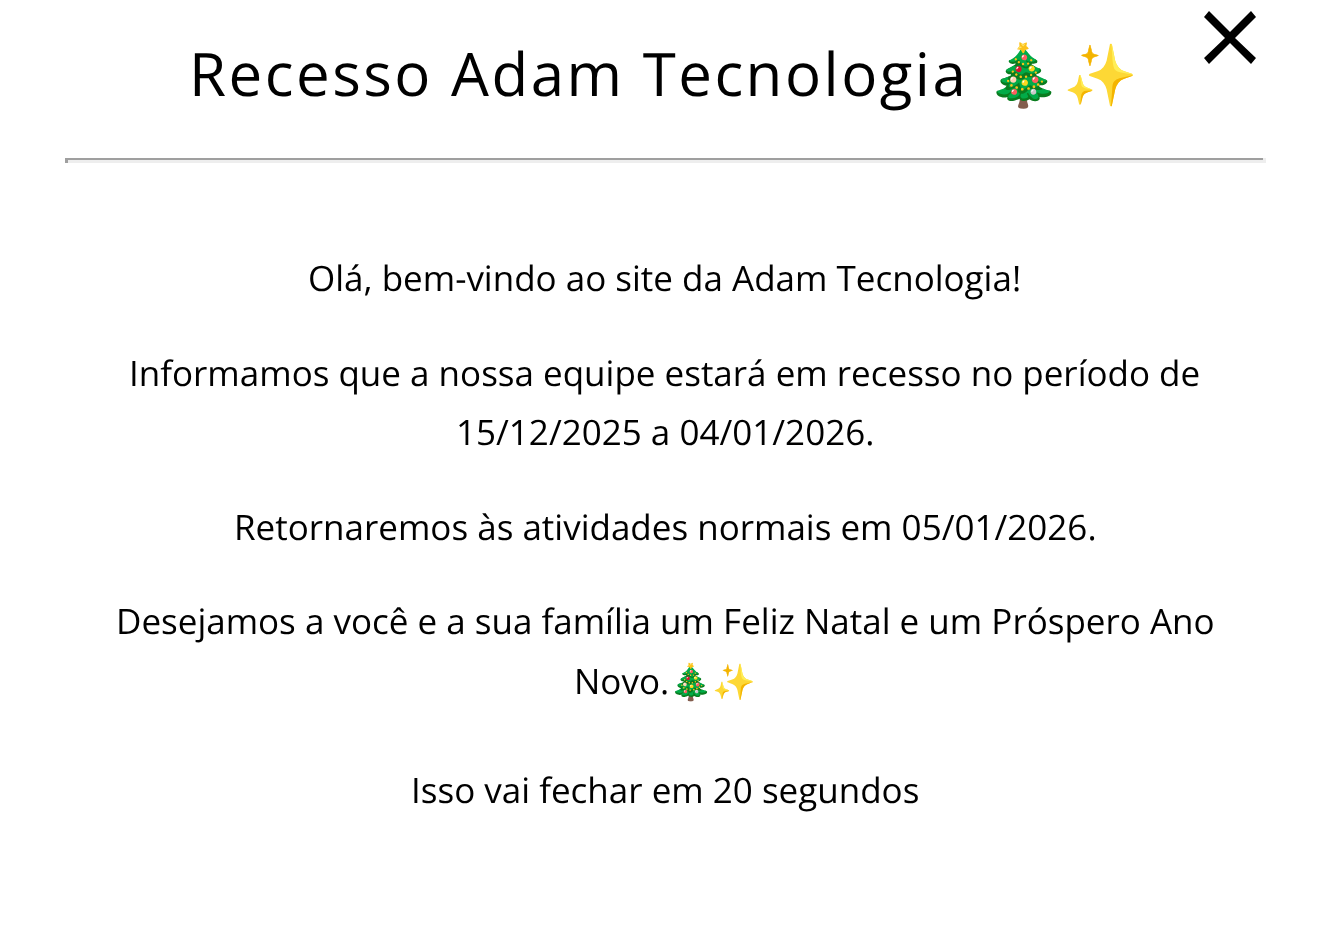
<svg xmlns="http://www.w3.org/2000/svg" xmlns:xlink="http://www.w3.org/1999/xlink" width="1329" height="926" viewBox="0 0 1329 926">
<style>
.cls-1{font:60px Open Sans;letter-spacing:2.5px;fill:#000000}
.cls-2{font:60px Noto Color Emoji;letter-spacing:2.5px;fill:#000000}
.cls-3{font:35px Open Sans;fill:#000000}
.cls-4{font:35px Noto Color Emoji;fill:#000000}
</style>
<rect width="100%" height="100%" fill="#ffffff"/>
<path fill="#000000" d="M1256 17L1251 11L1230 32L1209 11L1204 17L1225 38L1204 58L1209 64L1230 43L1251 64L1256 58L1235 38Z"/>
<rect fill="#9f9f9f" x="65" y="158" width="1200" height="2"/>
<rect fill="#eeeeee" x="1263" y="158" width="3" height="5"/>
<rect fill="#eeeeee" x="65" y="160" width="1200" height="3"/>
<rect fill="#9f9f9f" x="65" y="158" width="3" height="5"/>
<text class="cls-1" x="189" y="96">Recesso Adam Tecnologia</text>
<text class="cls-2" x="986" y="96">🎄✨</text>
<text class="cls-3" x="308" y="291">Olá, bem-vindo ao site da Adam Tecnologia!</text>
<text class="cls-3" x="129" y="386">Informamos que a nossa equipe estará em recesso no período de</text>
<text class="cls-3" x="456" y="445">15/12/2025 a 04/01/2026.</text>
<text class="cls-3" x="234" y="540">Retornaremos às atividades normais em 05/01/2026.</text>
<text class="cls-3" x="116" y="634">Desejamos a você e a sua família um Feliz Natal e um Próspero Ano</text>
<text class="cls-3" x="574" y="694">Novo.</text>
<text class="cls-4" x="669" y="694">🎄✨</text>
<text class="cls-3" x="411" y="803">Isso vai fechar em 20 segundos</text>
</svg>
